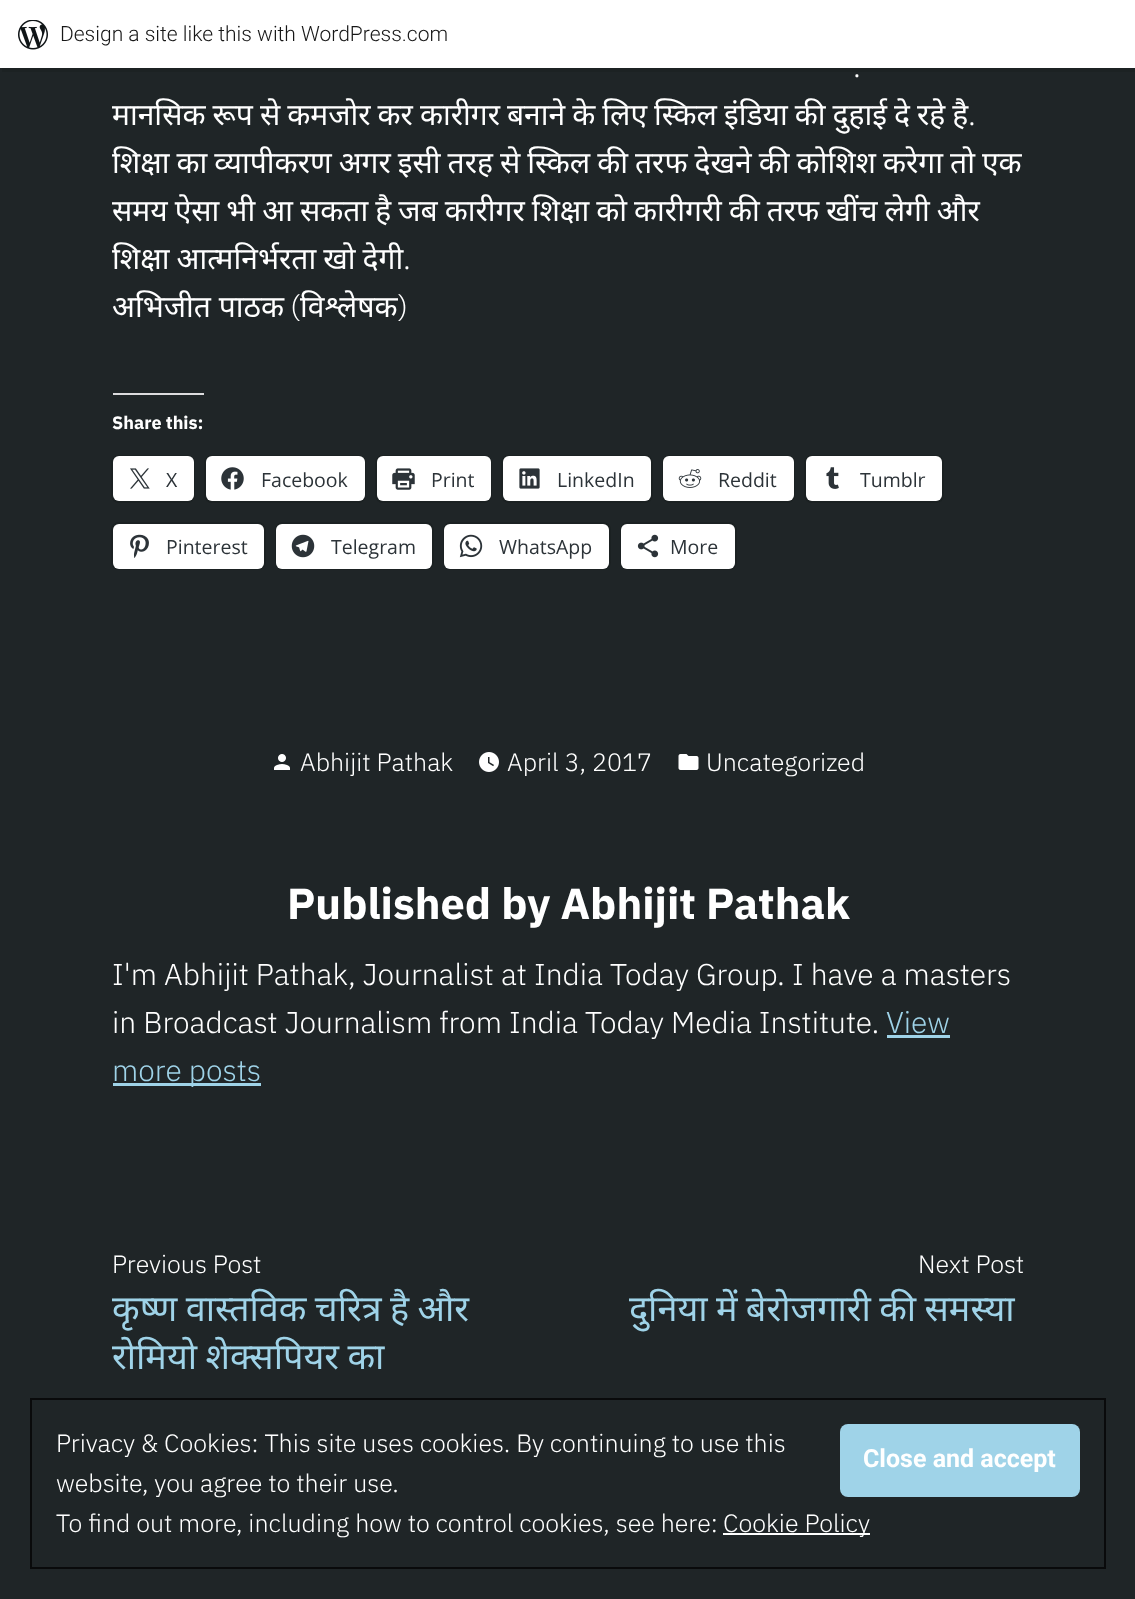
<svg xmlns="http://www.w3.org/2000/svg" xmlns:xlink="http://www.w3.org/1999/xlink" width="1135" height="1599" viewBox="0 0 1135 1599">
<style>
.cls-1{font:300 21px Roboto;fill:#171717}
.cls-2{font:300 30px IBM Plex Sans;fill:#ffffff}
.cls-3{font:30px Noto Sans;fill:#ffffff}
.cls-4{font:bold 18px IBM Plex Sans;fill:#ffffff}
.cls-5{font:19.5px Open Sans;fill:#2c3338}
.cls-6{font:300 25px IBM Plex Sans;fill:#ffffff}
.cls-7{font:bold 43.25px IBM Plex Sans;fill:#ffffff}
.cls-8{font:300 30px IBM Plex Sans;fill:#9fd3e8}
.cls-9{font:36px Noto Sans;fill:#9fd3e8}
.cls-10{font:bold 25px Roboto;fill:#ffffff}
</style>
<rect width="100%" height="100%" fill="#1f2527"/>
<path fill="#000000" fill-opacity="0.08" d="M2 68V72H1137V5H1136V68Z"/>
<rect fill="#ffffff" x="0" y="0" width="1135" height="68"/>
<image xlink:href="image0.png" x="18" y="20" width="30" height="30"/>
<rect fill="#dcdcde" x="113" y="393" width="91" height="2"/>
<rect fill="none" stroke="#1b2122" stroke-width="2" x="112" y="456" width="82" height="46" rx="7"/>
<rect fill="#ffffff" x="113" y="456" width="81" height="45" rx="6"/>
<image xlink:href="image1.png" x="130" y="468" width="20" height="21"/>
<rect fill="none" stroke="#1b2122" stroke-width="2" x="205" y="456" width="160" height="46" rx="7"/>
<rect fill="#ffffff" x="206" y="456" width="159" height="45" rx="6"/>
<image xlink:href="image2.png" x="221" y="467" width="23" height="23"/>
<rect fill="none" stroke="#1b2122" stroke-width="2" x="376" y="456" width="115" height="46" rx="7"/>
<rect fill="#ffffff" x="377" y="456" width="114" height="45" rx="6"/>
<image xlink:href="image3.png" x="392" y="468" width="23" height="22"/>
<rect fill="none" stroke="#1b2122" stroke-width="2" x="502" y="456" width="150" height="46" rx="7"/>
<rect fill="#ffffff" x="503" y="456" width="148" height="45" rx="6"/>
<image xlink:href="image4.png" x="519" y="468" width="21" height="21"/>
<rect fill="none" stroke="#1b2122" stroke-width="2" x="663" y="456" width="131" height="46" rx="7"/>
<rect fill="#ffffff" x="663" y="456" width="131" height="45" rx="6"/>
<image xlink:href="image5.png" x="678" y="469" width="24" height="19"/>
<rect fill="none" stroke="#1b2122" stroke-width="2" x="805" y="456" width="138" height="46" rx="7"/>
<rect fill="#ffffff" x="806" y="456" width="136" height="45" rx="6"/>
<image xlink:href="image6.png" x="826" y="467" width="13" height="22"/>
<rect fill="none" stroke="#1b2122" stroke-width="2" x="112" y="523" width="153" height="46" rx="7"/>
<rect fill="#ffffff" x="113" y="524" width="151" height="45" rx="6"/>
<image xlink:href="image7.png" x="130" y="534" width="19" height="24"/>
<rect fill="none" stroke="#1b2122" stroke-width="2" x="276" y="523" width="157" height="46" rx="7"/>
<rect fill="#ffffff" x="276" y="524" width="156" height="45" rx="6"/>
<image xlink:href="image8.png" x="291" y="534" width="24" height="24"/>
<rect fill="none" stroke="#1b2122" stroke-width="2" x="444" y="523" width="166" height="46" rx="7"/>
<rect fill="#ffffff" x="444" y="524" width="165" height="45" rx="6"/>
<image xlink:href="image9.png" x="459" y="534" width="24" height="24"/>
<rect fill="none" stroke="#1b2122" stroke-width="2" x="621" y="523" width="115" height="46" rx="7"/>
<rect fill="#ffffff" x="621" y="524" width="114" height="45" rx="6"/>
<image xlink:href="image10.png" x="637" y="534" width="22" height="24"/>
<image xlink:href="image11.png" x="274" y="754" width="16" height="16"/>
<image xlink:href="image12.png" x="479" y="752" width="20" height="20"/>
<image xlink:href="image13.png" x="678" y="754" width="21" height="16"/>
<rect fill="#9fd3e8" x="887" y="1035" width="63" height="3"/>
<rect fill="#9fd3e8" x="113" y="1083" width="148" height="3"/>
<rect fill="none" stroke="#090a0b" stroke-width="2" x="31" y="1399" width="1074" height="169"/>
<rect fill="#9fd3e8" x="840" y="1424" width="240" height="73" rx="8"/>
<rect fill="#ffffff" x="723" y="1533" width="147" height="2"/>
<text class="cls-1" x="60" y="41">Design a site like this with WordPress.com</text>
<text class="cls-2" x="853" y="77">.</text>
<text class="cls-3" x="112" y="125" word-spacing="-0.75">मानसिक रूप से कमजोर कर कारीगर बनाने के लिए स्किल इंडिया की दुहाई दे रहे है</text>
<text class="cls-2" x="968" y="125">.</text>
<text class="cls-3"><tspan x="112" y="173" word-spacing="-0.75">शिक्षा का व्यापीकरण अगर इसी तरह से स्किल की तरफ देखने की कोशिश करेगा तो एक</tspan><tspan x="112" y="221" word-spacing="-0.75">समय ऐसा भी आ सकता है जब कारीगर शिक्षा को कारीगरी की तरफ खींच लेगी और</tspan><tspan x="112" y="269" word-spacing="-0.75">शिक्षा आत्मनिर्भरता खो देगी</tspan></text>
<text class="cls-2" x="403" y="269">.</text>
<text class="cls-3" x="112" y="317">अभिजीत पाठक</text>
<text class="cls-2" x="290" y="317">(</text>
<text class="cls-3" x="300" y="317">विश्लेषक</text>
<text class="cls-2" x="398" y="317">)</text>
<text class="cls-4" x="112" y="429">Share this:</text>
<text class="cls-5" x="166" y="487">X</text>
<text class="cls-5" x="261" y="487">Facebook</text>
<text class="cls-5" x="431" y="487">Print</text>
<text class="cls-5" x="557" y="487">LinkedIn</text>
<text class="cls-5" x="718" y="487">Reddit</text>
<text class="cls-5" x="860" y="487">Tumblr</text>
<text class="cls-5" x="166" y="554">Pinterest</text>
<text class="cls-5" x="331" y="554">Telegram</text>
<text class="cls-5" x="499" y="554">WhatsApp</text>
<text class="cls-5" x="670" y="554">More</text>
<text class="cls-6" x="300" y="771">Abhijit Pathak</text>
<text class="cls-6" x="507" y="771">April 3, 2017</text>
<text class="cls-6" x="706" y="771">Uncategorized</text>
<text class="cls-7" x="287" y="919">Published by Abhijit Pathak</text>
<text class="cls-2"><tspan x="112" y="985">I'm Abhijit Pathak, Journalist at India Today Group. I have a masters</tspan><tspan x="112" y="1033">in Broadcast Journalism from India Today Media Institute.</tspan></text>
<text class="cls-8" x="886" y="1033">View</text>
<text class="cls-8" x="112" y="1081">more posts</text>
<text class="cls-6" x="112" y="1273">Previous Post</text>
<text class="cls-9"><tspan x="112" y="1321" word-spacing="-1">कृष्ण वास्तविक चरित्र है और</tspan><tspan x="112" y="1369" word-spacing="-1">रोमियो शेक्सपियर का</tspan></text>
<text class="cls-6" x="918" y="1273">Next Post</text>
<text class="cls-9" x="629" y="1321" word-spacing="-1">दुनिया में बेरोजगारी की समस्या</text>
<text class="cls-6" x="56" y="1452">Privacy &amp; Cookies: This site uses cookies. By continuing to use this</text>
<text class="cls-10" x="863" y="1467">Close and accept</text>
<text class="cls-6"><tspan x="56" y="1492">website, you agree to their use.</tspan><tspan x="56" y="1532">To find out more, including how to control cookies, see here:</tspan></text>
<text class="cls-6" x="723" y="1532">Cookie Policy</text>
</svg>
